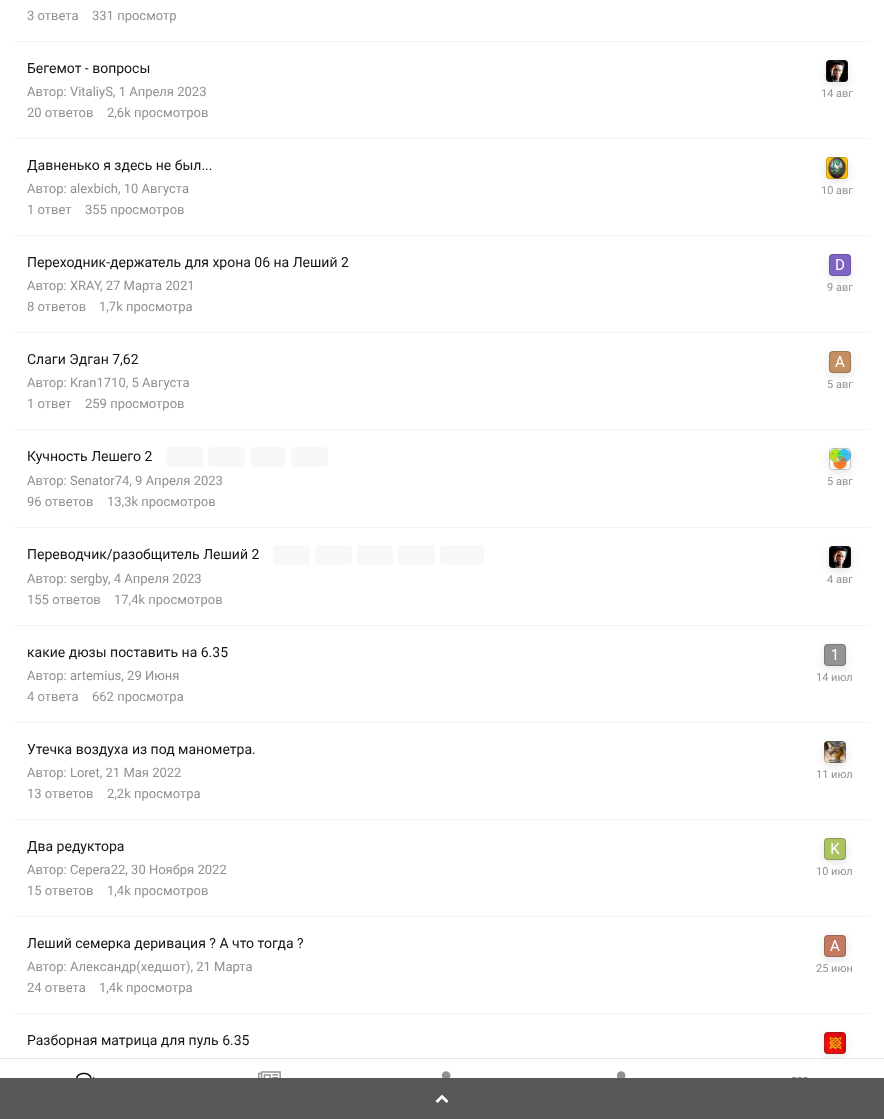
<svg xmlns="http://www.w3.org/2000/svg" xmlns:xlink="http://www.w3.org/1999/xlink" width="884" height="1119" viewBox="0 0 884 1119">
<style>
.cls-1{font:13px Roboto;fill:#8d9094}
.cls-2{font:14px Roboto;fill:#141414}
.cls-3{font:11px Roboto;fill:#8d9094}
</style>
<defs>
<clipPath id="clip1"><path d="M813 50H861V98H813ZM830 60H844C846 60 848 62 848 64V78C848 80 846 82 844 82H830C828 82 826 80 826 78V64C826 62 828 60 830 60Z" clip-rule="evenodd"/></clipPath>
<clipPath id="clip2"><path d="M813 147H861V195H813ZM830 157H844C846 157 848 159 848 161V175C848 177 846 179 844 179H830C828 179 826 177 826 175V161C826 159 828 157 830 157Z" clip-rule="evenodd"/></clipPath>
<clipPath id="clip3"><path d="M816 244H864V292H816ZM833 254H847C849 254 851 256 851 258V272C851 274 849 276 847 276H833C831 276 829 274 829 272V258C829 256 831 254 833 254Z" clip-rule="evenodd"/></clipPath>
<clipPath id="clip4"><path d="M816 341H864V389H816ZM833 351H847C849 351 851 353 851 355V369C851 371 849 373 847 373H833C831 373 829 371 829 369V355C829 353 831 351 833 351Z" clip-rule="evenodd"/></clipPath>
<clipPath id="clip5"><path d="M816 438H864V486H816ZM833 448H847C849 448 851 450 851 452V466C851 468 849 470 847 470H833C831 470 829 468 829 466V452C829 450 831 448 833 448Z" clip-rule="evenodd"/></clipPath>
<clipPath id="clip6"><path d="M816 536H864V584H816ZM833 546H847C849 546 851 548 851 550V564C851 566 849 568 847 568H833C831 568 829 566 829 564V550C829 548 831 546 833 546Z" clip-rule="evenodd"/></clipPath>
<clipPath id="clip7"><path d="M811 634H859V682H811ZM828 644H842C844 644 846 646 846 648V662C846 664 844 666 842 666H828C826 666 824 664 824 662V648C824 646 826 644 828 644Z" clip-rule="evenodd"/></clipPath>
<clipPath id="clip8"><path d="M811 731H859V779H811ZM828 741H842C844 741 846 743 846 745V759C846 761 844 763 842 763H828C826 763 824 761 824 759V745C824 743 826 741 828 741Z" clip-rule="evenodd"/></clipPath>
<clipPath id="clip9"><path d="M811 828H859V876H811ZM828 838H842C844 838 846 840 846 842V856C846 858 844 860 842 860H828C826 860 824 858 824 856V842C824 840 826 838 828 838Z" clip-rule="evenodd"/></clipPath>
<clipPath id="clip10"><path d="M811 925H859V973H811ZM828 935H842C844 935 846 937 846 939V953C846 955 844 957 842 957H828C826 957 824 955 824 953V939C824 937 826 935 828 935Z" clip-rule="evenodd"/></clipPath>
<clipPath id="clip11"><path d="M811 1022H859V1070H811ZM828 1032H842C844 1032 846 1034 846 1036V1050C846 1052 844 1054 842 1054H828C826 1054 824 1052 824 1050V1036C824 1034 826 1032 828 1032Z" clip-rule="evenodd"/></clipPath>
</defs>
<rect width="100%" height="100%" fill="#ffffff"/>
<rect fill="#f4f4f4" x="15" y="41" width="854" height="1"/>
<rect fill="#f4f4f4" x="15" y="138" width="854" height="1"/>
<image xlink:href="image0.png" x="826" y="60" width="22" height="22"/>
<g clip-path="url(#clip1)">
<rect fill="#000000" fill-opacity="0.1" filter="blur(4px)" x="826" y="63" width="22" height="22" rx="4"/>
</g>
<rect fill="none" stroke="#3a3d40" stroke-opacity="0.3" x="826.5" y="60.5" width="21" height="21" rx="3.5"/>
<rect fill="#f4f4f4" x="15" y="235" width="854" height="1"/>
<image xlink:href="image1.png" x="826" y="157" width="22" height="22"/>
<g clip-path="url(#clip2)">
<rect fill="#000000" fill-opacity="0.1" filter="blur(4px)" x="826" y="160" width="22" height="22" rx="4"/>
</g>
<rect fill="none" stroke="#3a3d40" stroke-opacity="0.3" x="826.5" y="157.5" width="21" height="21" rx="3.5"/>
<rect fill="#f4f4f4" x="15" y="332" width="854" height="1"/>
<image xlink:href="image2.png" x="829" y="254" width="22" height="22"/>
<g clip-path="url(#clip3)">
<rect fill="#000000" fill-opacity="0.1" filter="blur(4px)" x="829" y="257" width="22" height="22" rx="4"/>
</g>
<rect fill="none" stroke="#3a3d40" stroke-opacity="0.3" x="829.5" y="254.5" width="21" height="21" rx="3.5"/>
<rect fill="#f4f4f4" x="15" y="429" width="854" height="1"/>
<image xlink:href="image3.png" x="829" y="351" width="22" height="22"/>
<g clip-path="url(#clip4)">
<rect fill="#000000" fill-opacity="0.1" filter="blur(4px)" x="829" y="354" width="22" height="22" rx="4"/>
</g>
<rect fill="none" stroke="#3a3d40" stroke-opacity="0.3" x="829.5" y="351.5" width="21" height="21" rx="3.5"/>
<rect fill="#f4f4f4" x="15" y="527" width="854" height="1"/>
<rect fill="#f8f8f8" x="166" y="447" width="37" height="20" rx="4"/>
<rect fill="#f8f8f8" x="208" y="447" width="37" height="20" rx="4"/>
<rect fill="#f8f8f8" x="250" y="447" width="36" height="20" rx="4"/>
<rect fill="#f8f8f8" x="291" y="447" width="37" height="20" rx="4"/>
<image xlink:href="image4.png" x="829" y="448" width="22" height="22"/>
<g clip-path="url(#clip5)">
<rect fill="#000000" fill-opacity="0.1" filter="blur(4px)" x="829" y="451" width="22" height="22" rx="4"/>
</g>
<rect fill="none" stroke="#3a3d40" stroke-opacity="0.3" x="829.5" y="448.5" width="21" height="21" rx="3.5"/>
<rect fill="#f4f4f4" x="15" y="625" width="854" height="1"/>
<rect fill="#f8f8f8" x="273" y="545" width="37" height="20" rx="4"/>
<rect fill="#f8f8f8" x="315" y="545" width="37" height="20" rx="4"/>
<rect fill="#f8f8f8" x="357" y="545" width="36" height="20" rx="4"/>
<rect fill="#f8f8f8" x="398" y="545" width="37" height="20" rx="4"/>
<rect fill="#f8f8f8" x="440" y="545" width="44" height="20" rx="4"/>
<image xlink:href="image5.png" x="829" y="546" width="22" height="22"/>
<g clip-path="url(#clip6)">
<rect fill="#000000" fill-opacity="0.1" filter="blur(4px)" x="829" y="549" width="22" height="22" rx="4"/>
</g>
<rect fill="none" stroke="#3a3d40" stroke-opacity="0.3" x="829.5" y="546.5" width="21" height="21" rx="3.5"/>
<rect fill="#f4f4f4" x="15" y="722" width="854" height="1"/>
<image xlink:href="image6.png" x="824" y="644" width="22" height="22"/>
<g clip-path="url(#clip7)">
<rect fill="#000000" fill-opacity="0.1" filter="blur(4px)" x="824" y="647" width="22" height="22" rx="4"/>
</g>
<rect fill="none" stroke="#3a3d40" stroke-opacity="0.3" x="824.5" y="644.5" width="21" height="21" rx="3.5"/>
<rect fill="#f4f4f4" x="15" y="819" width="854" height="1"/>
<image xlink:href="image7.png" x="824" y="741" width="22" height="22"/>
<g clip-path="url(#clip8)">
<rect fill="#000000" fill-opacity="0.1" filter="blur(4px)" x="824" y="744" width="22" height="22" rx="4"/>
</g>
<rect fill="none" stroke="#3a3d40" stroke-opacity="0.3" x="824.5" y="741.5" width="21" height="21" rx="3.5"/>
<rect fill="#f4f4f4" x="15" y="916" width="854" height="1"/>
<image xlink:href="image8.png" x="824" y="838" width="22" height="22"/>
<g clip-path="url(#clip9)">
<rect fill="#000000" fill-opacity="0.1" filter="blur(4px)" x="824" y="841" width="22" height="22" rx="4"/>
</g>
<rect fill="none" stroke="#3a3d40" stroke-opacity="0.3" x="824.5" y="838.5" width="21" height="21" rx="3.5"/>
<rect fill="#f4f4f4" x="15" y="1013" width="854" height="1"/>
<image xlink:href="image9.png" x="824" y="935" width="22" height="22"/>
<g clip-path="url(#clip10)">
<rect fill="#000000" fill-opacity="0.1" filter="blur(4px)" x="824" y="938" width="22" height="22" rx="4"/>
</g>
<rect fill="none" stroke="#3a3d40" stroke-opacity="0.3" x="824.5" y="935.5" width="21" height="21" rx="3.5"/>
<image xlink:href="image10.png" x="824" y="1032" width="22" height="22"/>
<g clip-path="url(#clip11)">
<rect fill="#000000" fill-opacity="0.1" filter="blur(4px)" x="824" y="1035" width="22" height="22" rx="4"/>
</g>
<rect fill="none" stroke="#3a3d40" stroke-opacity="0.3" x="824.5" y="1032.5" width="21" height="21" rx="3.5"/>
<rect fill="#000000" fill-opacity="0.1" x="0" y="1058" width="884" height="1"/>
<rect fill="#ffffff" fill-opacity="0.8" x="825" y="1059" width="20" height="3"/>
<image xlink:href="image11.png" x="76" y="1072" width="19" height="6"/>
<image xlink:href="image12.png" x="258" y="1071" width="23" height="7"/>
<image xlink:href="image13.png" x="441" y="1071" width="10" height="7"/>
<image xlink:href="image13.png" x="616" y="1071" width="10" height="7"/>
<image xlink:href="image14.png" x="792" y="1077" width="16" height="1"/>
<rect fill="#575757" x="0" y="1078" width="884" height="41"/>
<image xlink:href="image15.png" x="435" y="1094" width="14" height="9"/>
<text class="cls-1" x="27" y="20">3 ответа</text>
<text class="cls-1" x="92" y="20">331 просмотр</text>
<text class="cls-2" x="27" y="73">Бегемот - вопросы</text>
<text class="cls-1" x="27" y="96">Автор: VitaliyS, 1 Апреля 2023</text>
<text class="cls-3" x="821" y="97">14 авг</text>
<text class="cls-1" x="27" y="117">20 ответов</text>
<text class="cls-1" x="107" y="117">2,6k просмотров</text>
<text class="cls-2" x="27" y="170">Давненько я здесь не был...</text>
<text class="cls-1" x="27" y="193">Автор: alexbich, 10 Августа</text>
<text class="cls-3" x="821" y="194">10 авг</text>
<text class="cls-1" x="27" y="214">1 ответ</text>
<text class="cls-1" x="85" y="214">355 просмотров</text>
<text class="cls-2" x="27" y="267">Переходник-держатель для хрона 06 на Леший 2</text>
<text class="cls-1" x="27" y="290">Автор: XRAY</text>
<text class="cls-1" x="100" y="290">, 27 Марта 2021</text>
<text class="cls-3" x="827" y="291">9 авг</text>
<text class="cls-1" x="27" y="311">8 ответов</text>
<text class="cls-1" x="99" y="311">1,7k просмотра</text>
<text class="cls-2" x="27" y="364">Слаги Эдган 7,62</text>
<text class="cls-1" x="27" y="387">Автор: Kran1710, 5 Августа</text>
<text class="cls-3" x="827" y="388">5 авг</text>
<text class="cls-1" x="27" y="408">1 ответ</text>
<text class="cls-1" x="85" y="408">259 просмотров</text>
<text class="cls-2" x="27" y="461">Кучность Лешего 2</text>
<text class="cls-1" x="27" y="485">Автор: Senator74, 9 Апреля 2023</text>
<text class="cls-3" x="827" y="485">5 авг</text>
<text class="cls-1" x="27" y="506">96 ответов</text>
<text class="cls-1" x="107" y="506">13,3k просмотров</text>
<text class="cls-2" x="27" y="559">Переводчик/разобщитель Леший 2</text>
<text class="cls-1" x="27" y="583">Автор: sergby</text>
<text class="cls-1" x="108" y="583">, 4 Апреля 2023</text>
<text class="cls-3" x="827" y="583">4 авг</text>
<text class="cls-1" x="27" y="604">155 ответов</text>
<text class="cls-1" x="114" y="604">17,4k просмотров</text>
<text class="cls-2" x="27" y="657">какие дюзы поставить на 6.35</text>
<text class="cls-1" x="27" y="680">Автор: artemius, 29 Июня</text>
<text class="cls-3" x="816" y="681">14 июл</text>
<text class="cls-1" x="27" y="701">4 ответа</text>
<text class="cls-1" x="92" y="701">662 просмотра</text>
<text class="cls-2" x="27" y="754">Утечка воздуха из под манометра.</text>
<text class="cls-1" x="27" y="777">Автор: Loret, 21 Мая 2022</text>
<text class="cls-3" x="816" y="778">11 июл</text>
<text class="cls-1" x="27" y="798">13 ответов</text>
<text class="cls-1" x="107" y="798">2,2k просмотра</text>
<text class="cls-2" x="27" y="851">Два редуктора</text>
<text class="cls-1" x="27" y="874">Автор: Cepera22, 30 Ноября 2022</text>
<text class="cls-3" x="816" y="875">10 июл</text>
<text class="cls-1" x="27" y="895">15 ответов</text>
<text class="cls-1" x="107" y="895">1,4k просмотров</text>
<text class="cls-2" x="27" y="948">Леший семерка деривация ? А что тогда ?</text>
<text class="cls-1" x="27" y="971">Автор: Александр(хедшот), 21 Марта</text>
<text class="cls-3" x="816" y="972">25 июн</text>
<text class="cls-1" x="27" y="992">24 ответа</text>
<text class="cls-1" x="99" y="992">1,4k просмотра</text>
<text class="cls-2" x="27" y="1045">Разборная матрица для пуль 6.35</text>
</svg>
